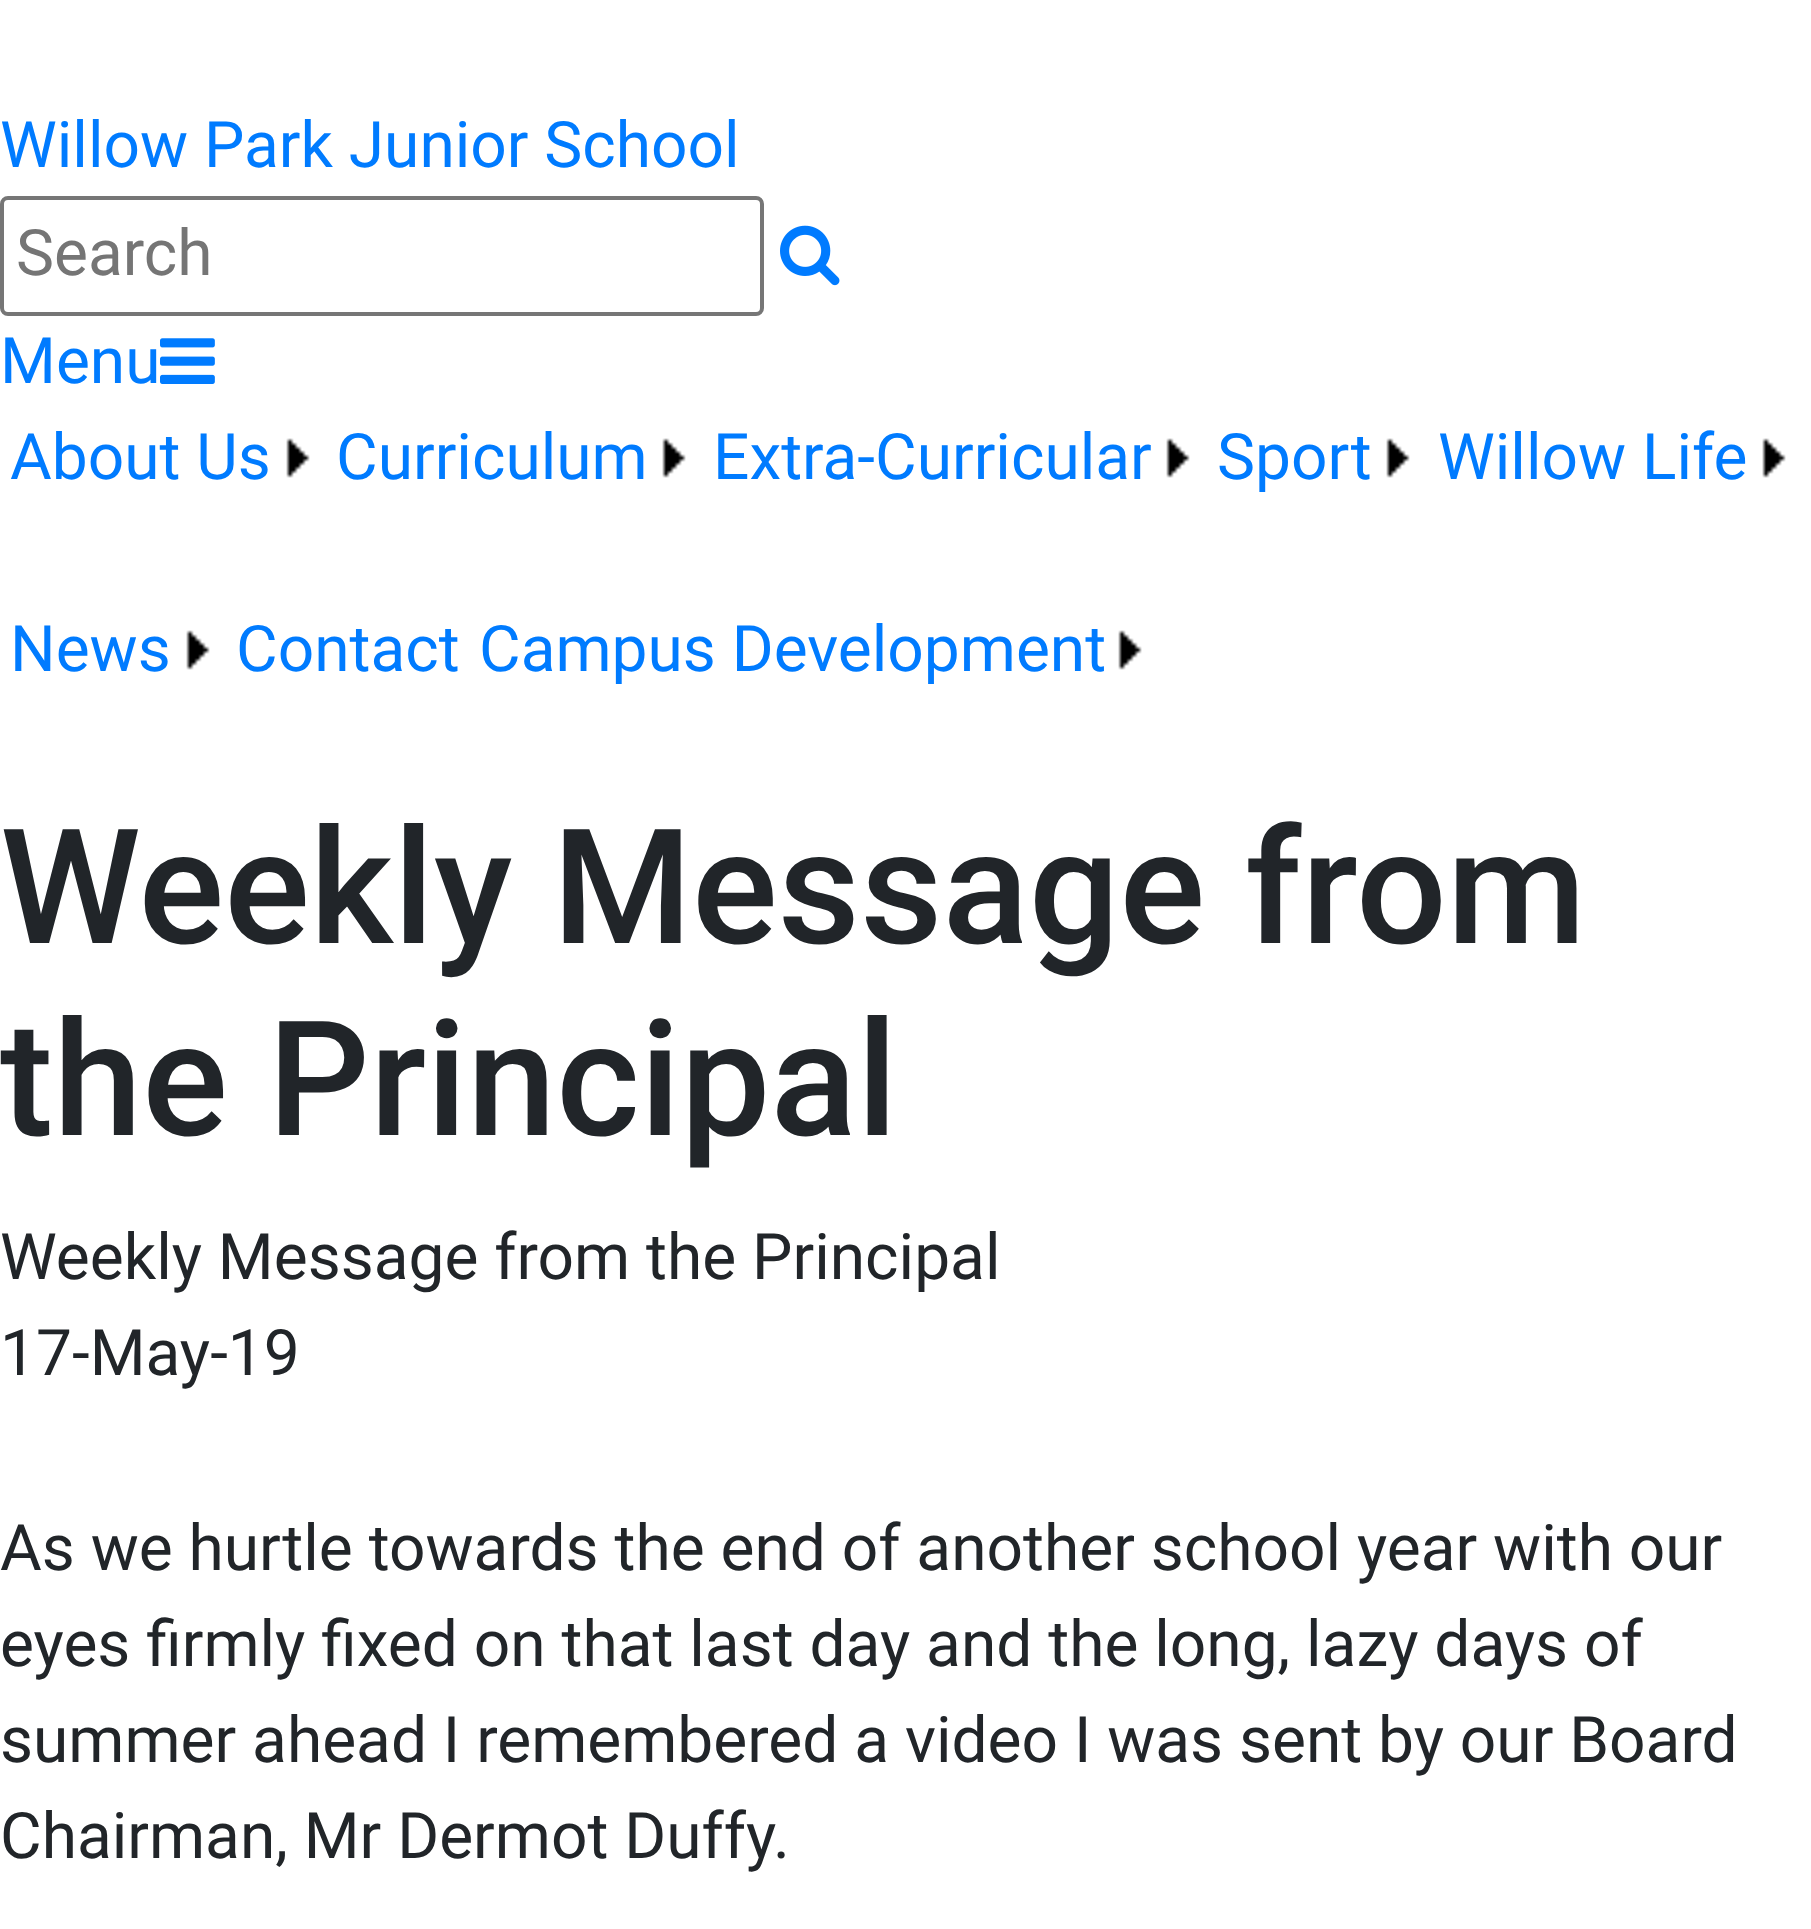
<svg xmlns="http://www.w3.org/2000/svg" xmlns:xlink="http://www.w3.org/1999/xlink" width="1811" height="1929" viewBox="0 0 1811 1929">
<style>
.cls-1{font:64px Roboto;fill:#007bff}
.cls-2{font:64px Roboto;fill:#757575}
.cls-3{font:500 160px Roboto;fill:#212529}
.cls-4{font:64px Roboto;fill:#212529}
</style>
<rect width="100%" height="100%" fill="#ffffff"/>
<rect fill="none" stroke="#767676" stroke-width="4" x="2" y="198" width="760" height="116" rx="6"/>
<image xlink:href="image0.png" x="780" y="225" width="60" height="61"/>
<image xlink:href="image1.png" x="160" y="338" width="55" height="46"/>
<image xlink:href="image2.png" x="286" y="438" width="24" height="40"/>
<image xlink:href="image2.png" x="662" y="438" width="24" height="40"/>
<image xlink:href="image2.png" x="1166" y="438" width="24" height="40"/>
<image xlink:href="image2.png" x="1386" y="438" width="24" height="40"/>
<image xlink:href="image2.png" x="1762" y="438" width="24" height="40"/>
<image xlink:href="image2.png" x="186" y="630" width="24" height="40"/>
<image xlink:href="image2.png" x="1118" y="630" width="24" height="40"/>
<text class="cls-1" x="0" y="167">Willow Park Junior School</text>
<text class="cls-2" x="16" y="275">Search</text>
<text class="cls-1" x="0" y="383">Menu</text>
<text class="cls-1" x="10" y="479">About Us</text>
<text class="cls-1" x="336" y="479">Curriculum</text>
<text class="cls-1" x="713" y="479">Extra-Curricular</text>
<text class="cls-1" x="1217" y="479">Sport</text>
<text class="cls-1" x="1438" y="479">Willow Life</text>
<text class="cls-1" x="10" y="671">News</text>
<text class="cls-1" x="236" y="671">Contact</text>
<text class="cls-1" x="479" y="671">Campus Development</text>
<text class="cls-3"><tspan x="0" y="943">Weekly Message from</tspan><tspan x="0" y="1135">the Principal</tspan></text>
<text class="cls-4"><tspan x="0" y="1279">Weekly Message from the Principal</tspan><tspan x="0" y="1375">17-May-19</tspan></text>
<text class="cls-4"><tspan x="0" y="1570">As we hurtle towards the end of another school year with our</tspan><tspan x="0" y="1666">eyes firmly fixed on that last day and the long, lazy days of</tspan><tspan x="0" y="1762">summer ahead I remembered a video I was sent by our Board</tspan><tspan x="0" y="1858">Chairman, Mr Dermot Duffy.</tspan></text>
</svg>
